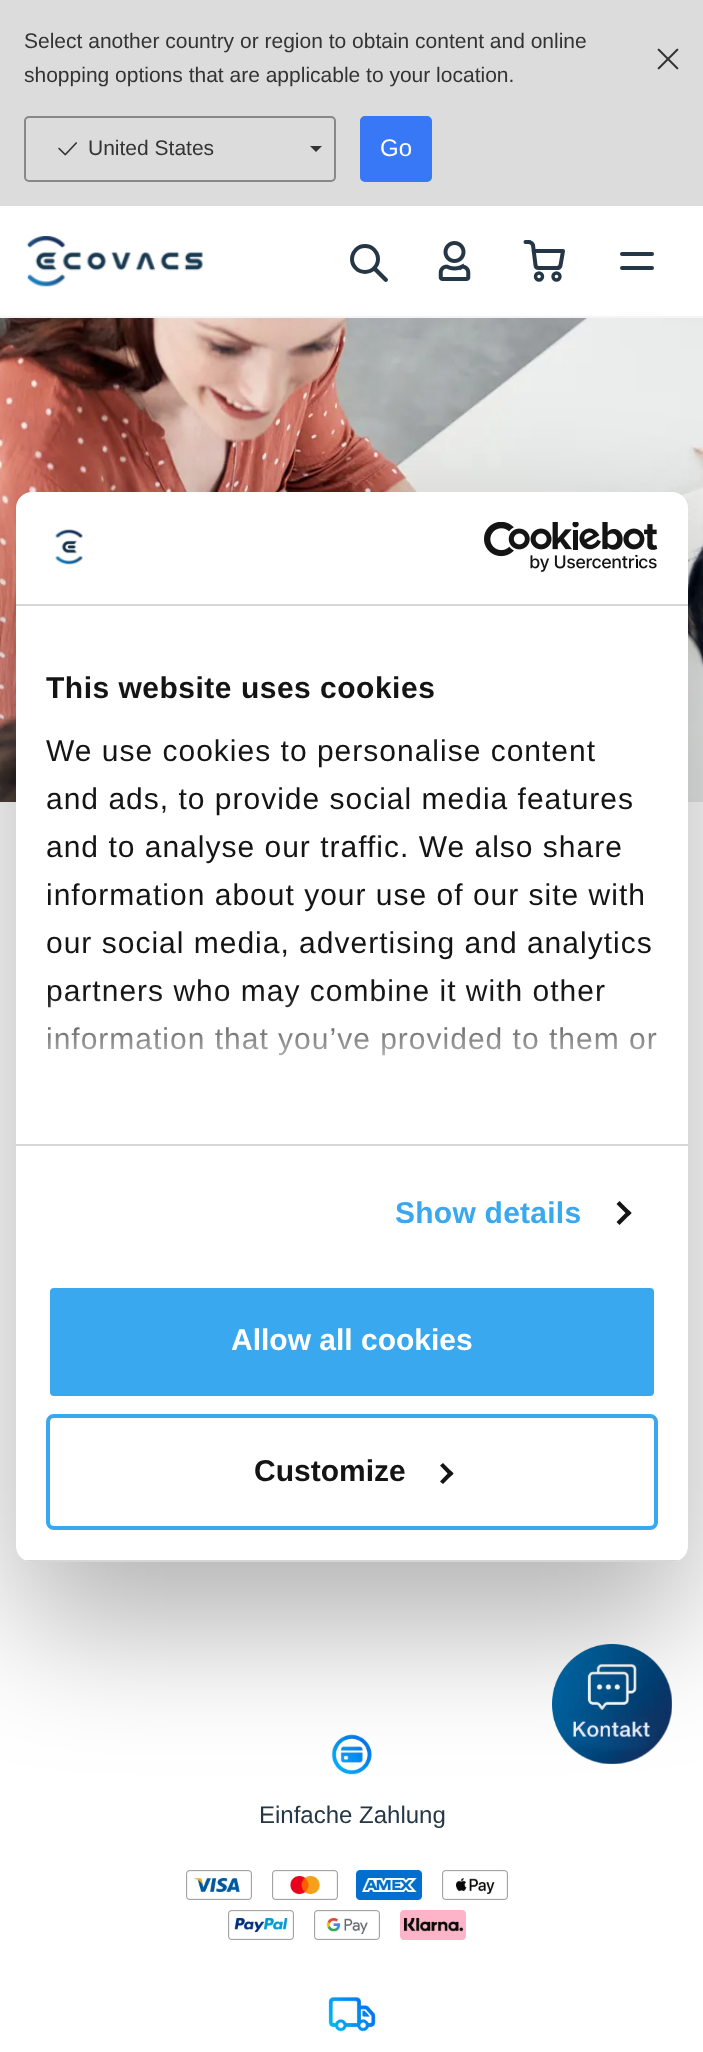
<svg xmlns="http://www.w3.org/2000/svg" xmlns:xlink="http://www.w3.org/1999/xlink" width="703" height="2052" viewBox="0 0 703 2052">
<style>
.cls-1{font:21px Liberation Sans;fill:#333333}
.cls-2{font:24px Liberation Sans;fill:#ffffff}
.cls-3{font:24px Liberation Sans;fill:#253746}
.cls-4{font:bold 30px Liberation Sans;letter-spacing:0.5px;fill:#141414}
.cls-5{font:30px Liberation Sans;letter-spacing:1px;fill:#141414}
.cls-6{font:bold 30px Liberation Sans;letter-spacing:0.25px;fill:#39a8ef}
.cls-7{font:bold 30px Liberation Sans;fill:#ffffff}
.cls-8{font:bold 30px Liberation Sans;fill:#141414}
</style>
<defs>
<clipPath id="clip1"><rect x="16" y="492" width="672" height="1070" rx="16"/></clipPath>
<linearGradient id="g1" gradientUnits="userSpaceOnUse" x1="339" y1="1143" x2="339" y2="993"><stop offset="0" stop-color="#ffffff"/><stop offset="0.5" stop-color="#ffffff" stop-opacity="0.8"/><stop offset="1" stop-color="#ffffff" stop-opacity="0"/></linearGradient>
</defs>
<rect width="100%" height="100%" fill="#ffffff"/>
<rect fill="#dcdcdc" x="0" y="0" width="703" height="206"/>
<image xlink:href="image0.png" x="657" y="48" width="22" height="22"/>
<rect fill="none" stroke="#888888" stroke-width="2" x="25" y="117" width="310" height="64" rx="4"/>
<image xlink:href="image1.png" x="58" y="142" width="19" height="14"/>
<path fill="#333333" d="M310 146H322L316 152Z"/>
<rect fill="#3877f5" stroke="#3877f5" stroke-width="2" x="361" y="117" width="70" height="64" rx="4"/>
<rect fill="#f5f5f7" x="0" y="316" width="703" height="2"/>
<image xlink:href="image2.png" x="26" y="236" width="177" height="51"/>
<circle fill="none" stroke="#253746" stroke-width="4" cx="365" cy="259" r="13"/>
<path fill="#253746" d="M384.5 281.5C386.5 283 389 280.5 387.5 278.5ZM386 280L387.5 278.5L375.5 266.5L372.5 269.5L384.5 281.5Z"/>
<image xlink:href="image3.png" x="438" y="241" width="33" height="40"/>
<path fill="none" stroke="#253746" stroke-width="4" stroke-linecap="round" stroke-linejoin="round" d="M533.5 251H563L560.5 265.5C560 267 558.5 268 557 268H539C537 268 535.5 267 535.5 265L533 245C532.5 243.5 531 242.5 529.5 242H525.5"/>
<circle fill="none" stroke="#253746" stroke-width="3.4" cx="539" cy="276.5" r="3.5"/>
<circle fill="none" stroke="#253746" stroke-width="3.4" cx="556.5" cy="276.5" r="3.5"/>
<path fill="none" stroke="#253746" stroke-width="4" stroke-linecap="round" d="M622 254H652M622 268H652"/>
<image xlink:href="image4.png" x="0" y="318" width="703" height="484"/>
<image xlink:href="image5.png" x="331" y="1734" width="41" height="41"/>
<image xlink:href="image6.png" x="186" y="1870" width="66" height="30"/>
<image xlink:href="image7.png" x="272" y="1870" width="66" height="30"/>
<image xlink:href="image8.png" x="356" y="1870" width="66" height="30"/>
<image xlink:href="image9.png" x="442" y="1870" width="66" height="30"/>
<image xlink:href="image10.png" x="228" y="1910" width="66" height="30"/>
<image xlink:href="image11.png" x="314" y="1910" width="66" height="30"/>
<image xlink:href="image12.png" x="400" y="1910" width="66" height="30"/>
<image xlink:href="image13.png" x="328" y="1996" width="48" height="36"/>
<image xlink:href="image16.png" x="552" y="1644" width="120" height="120"/>
<rect fill="#000000" fill-opacity="0.3" filter="blur(68px)" x="16" y="556" width="672" height="1070" rx="16"/>
<rect fill="#ffffff" x="16" y="492" width="672" height="1070" rx="16"/>
<rect fill="#d6d6d6" x="16" y="604" width="672" height="2"/>
<image xlink:href="image14.png" x="55" y="529" width="28" height="36"/>
<image xlink:href="image15.png" x="484" y="522" width="174" height="50"/>
<rect fill="#d6d6d6" x="16" y="1144" width="672" height="2"/>
<path fill="#141414" d="M619.5 1201L631.5 1213L628.5 1216L616.5 1204Z"/>
<path fill="#141414" d="M628.5 1210L631.5 1213L619.5 1225L616.5 1222Z"/>
<g clip-path="url(#clip1)">
<rect fill="#d6d6d6" x="16" y="1560" width="672" height="2"/>
</g>
<rect fill="#39a8ef" stroke="#ffffff" stroke-width="4" x="48" y="1286" width="608" height="112" rx="6"/>
<rect fill="none" stroke="#39a8ef" stroke-width="4" x="48" y="1416" width="608" height="112" rx="6"/>
<path fill="#141414" d="M443 1463L453.5 1473.5L450.5 1476.5L440 1465.5Z"/>
<path fill="#141414" d="M450.5 1470.5L453.5 1473.5L443 1484L440 1481.5Z"/>
<text class="cls-1"><tspan x="24" y="48">Select another country or region to obtain content and online</tspan><tspan x="24" y="82">shopping options that are applicable to your location.</tspan></text>
<text class="cls-1" x="88" y="155">United States</text>
<text class="cls-2" x="380" y="156">Go</text>
<text class="cls-3" x="259" y="1823">Einfache Zahlung</text>
<text class="cls-4" x="46" y="698">This website uses cookies</text>
<text class="cls-5"><tspan x="46" y="761">We use cookies to personalise content</tspan><tspan x="46" y="809">and ads, to provide social media features</tspan><tspan x="46" y="857">and to analyse our traffic. We also share</tspan><tspan x="46" y="905">information about your use of our site with</tspan><tspan x="46" y="953">our social media, advertising and analytics</tspan><tspan x="46" y="1001">partners who may combine it with other</tspan><tspan x="46" y="1049">information that you’ve provided to them or</tspan></text>
<rect fill="url(#g1)" x="48" y="995" width="609" height="61"/>
<text class="cls-6" x="395" y="1223">Show details</text>
<text class="cls-7" x="231" y="1350">Allow all cookies</text>
<text class="cls-8" x="254" y="1481">Customize</text>
</svg>
